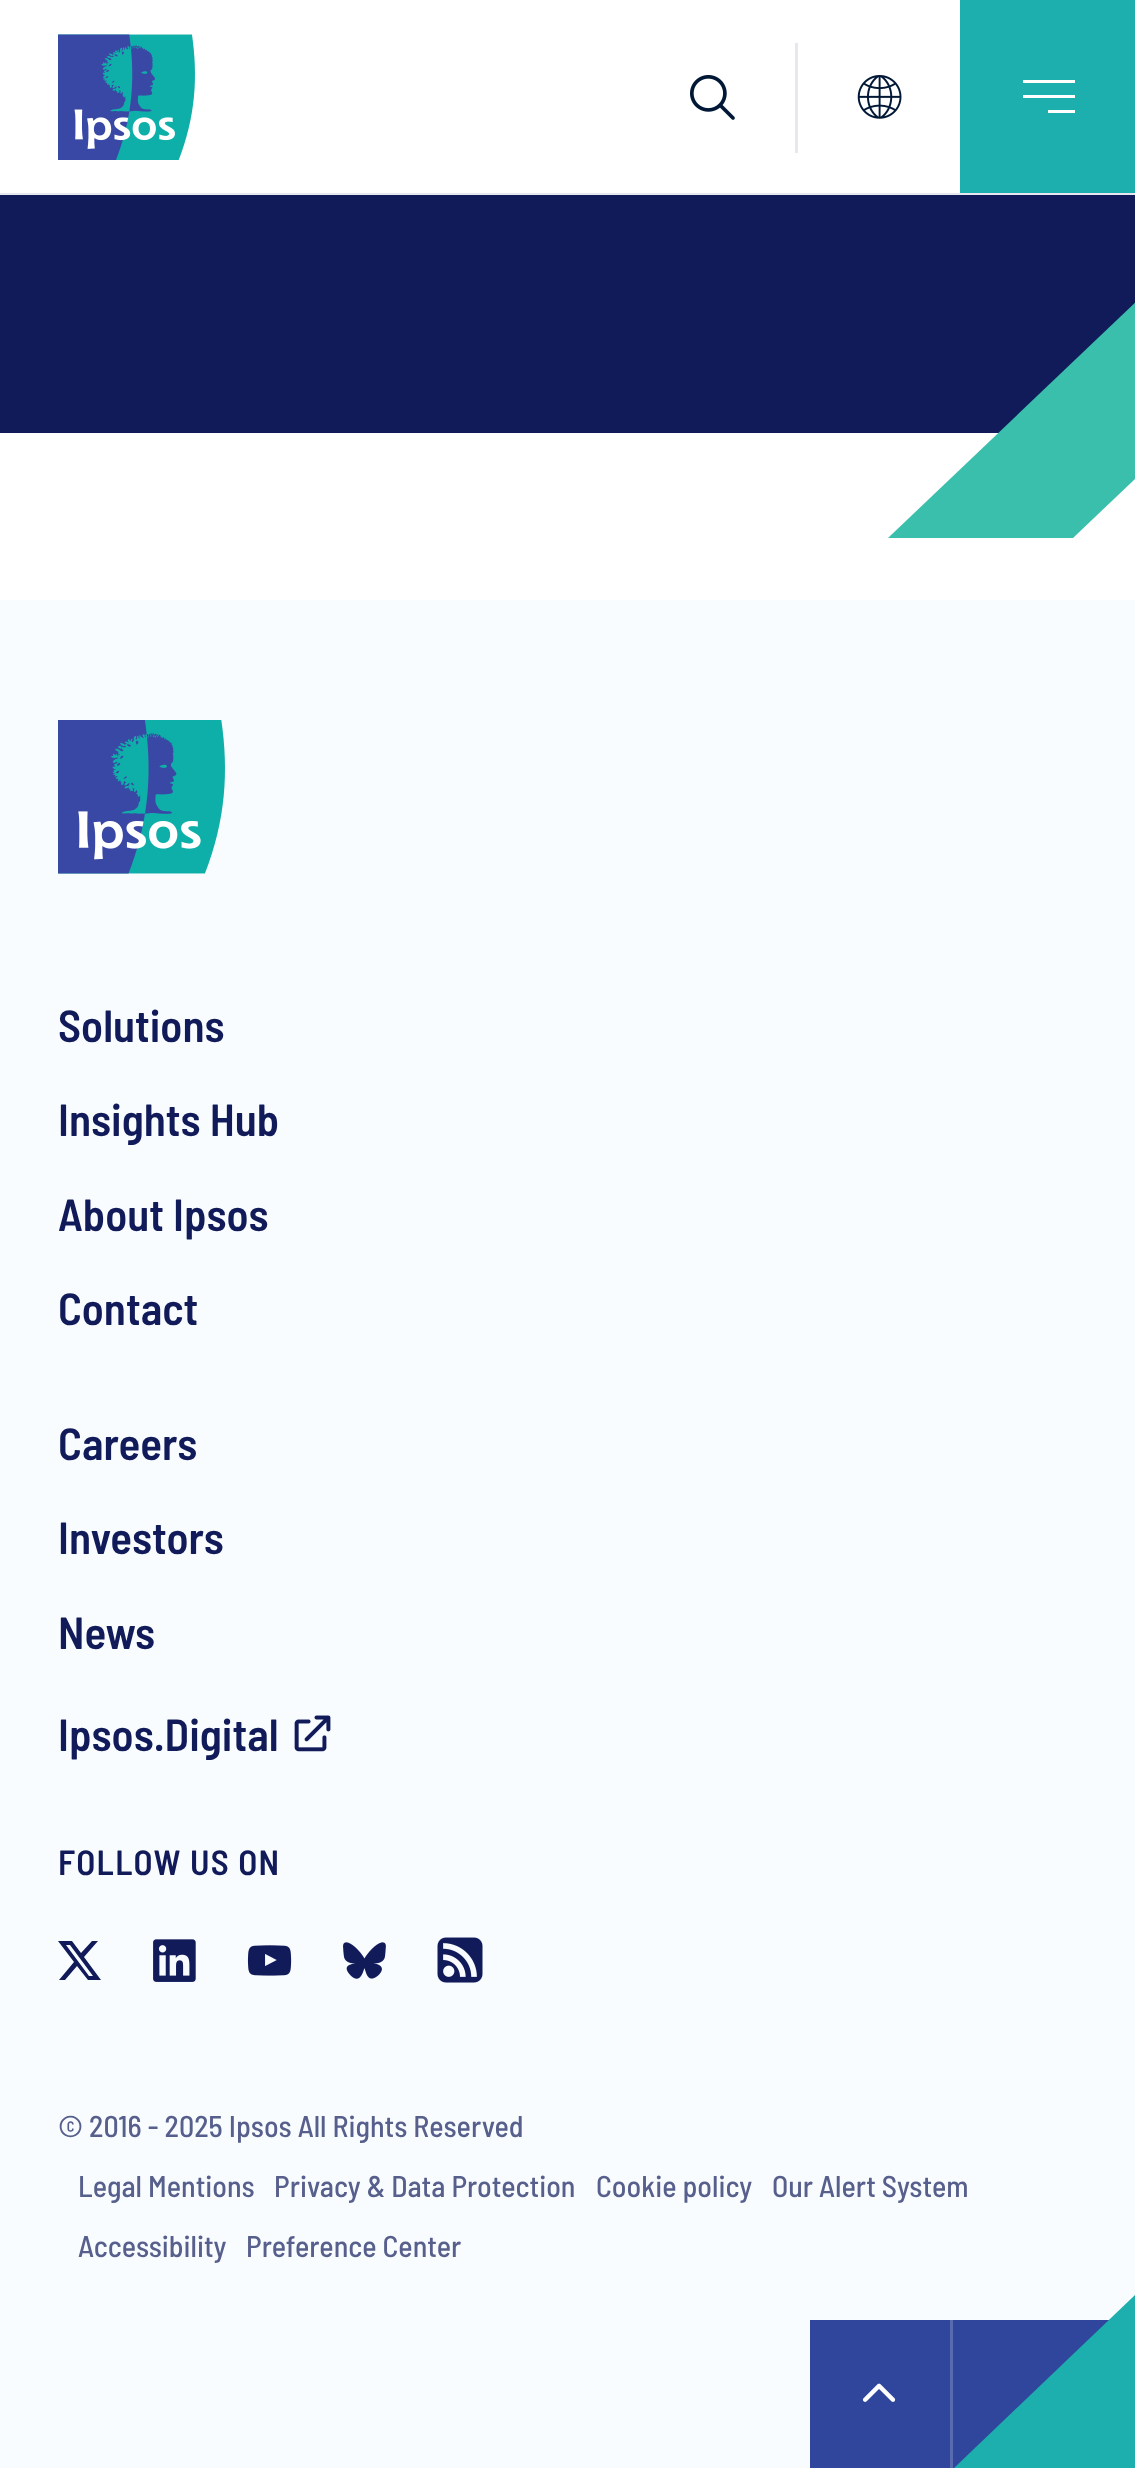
<svg xmlns="http://www.w3.org/2000/svg" xmlns:xlink="http://www.w3.org/1999/xlink" width="1135" height="2468" viewBox="0 0 1135 2468">
<style>
.cls-1{font:600 45px Barlow Semi Condensed;fill:#121b5a}
.cls-2{font:600 35px Barlow Semi Condensed;letter-spacing:1.25px;fill:#121b5a}
.cls-3{font:500 30px Barlow Semi Condensed;fill:#575f8c}
</style>
<rect width="100%" height="100%" fill="#ffffff"/>
<rect fill="#e7e8ef" x="0" y="193" width="1135" height="2"/>
<image xlink:href="image0.png" x="58" y="34" width="137" height="126"/>
<image xlink:href="image1.png" x="690" y="75" width="45" height="45"/>
<rect fill="#e7e8ef" x="795" y="43" width="3" height="110"/>
<image xlink:href="image2.png" x="857" y="75" width="45" height="44"/>
<rect fill="#1dafad" x="960" y="0" width="175" height="193"/>
<rect fill="#ffffff" x="1023" y="80" width="52" height="3"/>
<rect fill="#ffffff" x="1023" y="95" width="52" height="3"/>
<rect fill="#ffffff" x="1048" y="110" width="27" height="3"/>
<rect fill="#121b5a" x="0" y="195" width="1135" height="238"/>
<path fill="#3abfac" d="M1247 196H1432L1073 538H888Z"/>
<rect fill="#f9fcff" x="0" y="600" width="1135" height="1868"/>
<image xlink:href="image3.png" x="58" y="720" width="167" height="154"/>
<image xlink:href="image4.png" x="294" y="1715" width="37" height="37"/>
<path fill="#121b5a" d="M92 1941H98L84 1957L101 1980H88L77 1966L65 1980H59L74 1962L58 1941H72L81 1953ZM89 1976H93L70 1945H66Z"/>
<image xlink:href="image5.png" x="153" y="1939" width="43" height="43"/>
<image xlink:href="image6.png" x="247" y="1945" width="45" height="31"/>
<image xlink:href="image7.png" x="343" y="1942" width="43" height="37"/>
<image xlink:href="image8.png" x="437" y="1937" width="46" height="46"/>
<rect fill="#2f469c" x="810" y="2320" width="299" height="148"/>
<path fill="#1dafad" d="M1135 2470V2295L953 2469V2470Z"/>
<rect fill="#596bb0" x="950" y="2320" width="3" height="148"/>
<image xlink:href="image9.png" x="862" y="2383" width="34" height="19"/>
<text class="cls-1" x="58" y="1042">Solutions</text>
<text class="cls-1" x="58" y="1136">Insights Hub</text>
<text class="cls-1" x="58" y="1231">About Ipsos</text>
<text class="cls-1" x="58" y="1325">Contact</text>
<text class="cls-1" x="58" y="1460">Careers</text>
<text class="cls-1" x="58" y="1554">Investors</text>
<text class="cls-1" x="58" y="1649">News</text>
<text class="cls-1" x="58" y="1751">Ipsos.Digital</text>
<text class="cls-2" x="58" y="1875">FOLLOW US ON</text>
<text class="cls-3" x="58" y="2137">© 2016 - 2025 Ipsos All Rights Reserved</text>
<text class="cls-3" x="78" y="2197">Legal Mentions</text>
<text class="cls-3" x="274" y="2197">Privacy &amp; Data Protection</text>
<text class="cls-3" x="596" y="2197">Cookie policy</text>
<text class="cls-3" x="772" y="2197">Our Alert System</text>
<text class="cls-3" x="78" y="2257">Accessibility</text>
<text class="cls-3" x="246" y="2257">Preference Center</text>
</svg>
